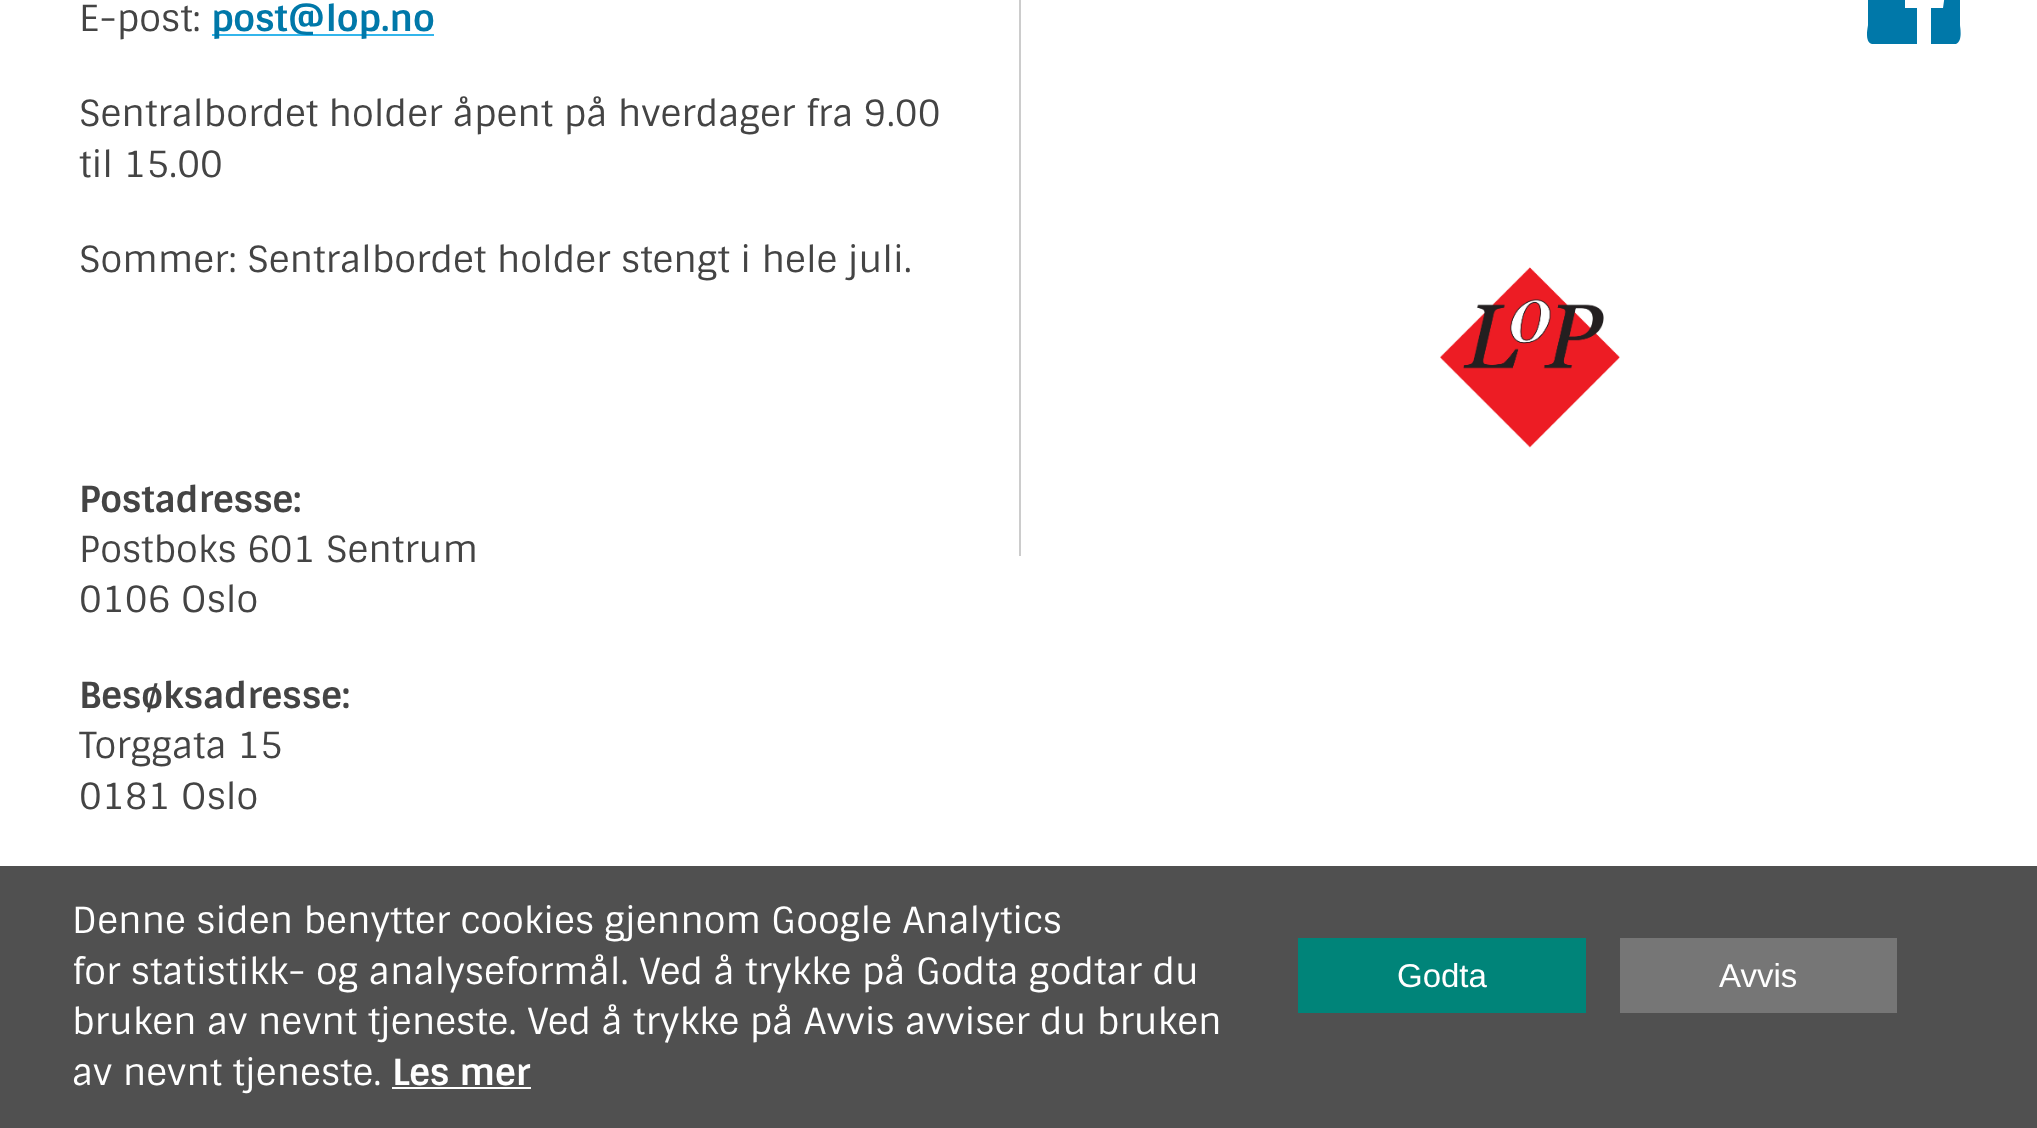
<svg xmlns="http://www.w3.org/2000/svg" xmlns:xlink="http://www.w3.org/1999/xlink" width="2037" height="1128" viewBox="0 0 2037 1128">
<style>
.cls-1{font:36px Sintony;fill:#444444}
.cls-2{font:bold 36px Sintony;fill:#0078a9}
.cls-3{font:bold 36px Sintony;fill:#444444}
.cls-4{font:36px Sintony;fill:#ffffff}
.cls-5{font:bold 36px Sintony;fill:#ffffff}
.cls-6{font:33px Liberation Sans;fill:#ffffff}
</style>
<rect width="100%" height="100%" fill="#ffffff"/>
<rect fill="#33b5eb" x="212" y="34" width="222" height="2"/>
<rect fill="#cccccc" x="1019" y="0" width="2" height="556"/>
<path fill="#0078a9" d="M1955-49C1956-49 1958-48 1959-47C1962-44 1960-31 1960-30V25C1960 27 1963 41 1956 44H1931V8H1943L1945-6H1931C1931-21 1930-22 1946-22V-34C1934-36 1920-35 1917-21V-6H1905V8H1917V44H1872C1864 42 1868 27 1868 25V-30C1868-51 1865-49 1886-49Z"/>
<image xlink:href="image0.png" x="1440" y="267" width="180" height="181"/>
<rect fill="#505050" x="0" y="866" width="2037" height="262"/>
<rect fill="#ffffff" x="392" y="1087" width="139" height="2"/>
<rect fill="#008479" x="1298" y="938" width="288" height="75"/>
<rect fill="#767676" x="1620" y="938" width="277" height="75"/>
<text class="cls-1" x="79" y="31">E-post:</text>
<text class="cls-2" x="211" y="31">post@lop.no</text>
<text class="cls-1"><tspan x="79" y="126">Sentralbordet holder åpent på hverdager fra 9.00</tspan><tspan x="79" y="177">til 15.00</tspan></text>
<text class="cls-1" x="79" y="272">Sommer: Sentralbordet holder stengt i hele juli.</text>
<text class="cls-3" x="79" y="512">Postadresse:</text>
<text class="cls-1"><tspan x="79" y="562">Postboks 601 Sentrum</tspan><tspan x="79" y="612">0106 Oslo</tspan></text>
<text class="cls-3" x="79" y="708">Besøksadresse:</text>
<text class="cls-1"><tspan x="79" y="758">Torggata 15</tspan><tspan x="79" y="809">0181 Oslo</tspan></text>
<text class="cls-4"><tspan x="72" y="933">Denne siden benytter cookies gjennom Google Analytics</tspan><tspan x="72" y="984">for statistikk- og analyseformål. Ved å trykke på Godta godtar du</tspan><tspan x="72" y="1034">bruken av nevnt tjeneste. Ved å trykke på Avvis avviser du bruken</tspan><tspan x="72" y="1085">av nevnt tjeneste.</tspan></text>
<text class="cls-5" x="392" y="1085">Les mer</text>
<text class="cls-6" x="1397" y="987">Godta</text>
<text class="cls-6" x="1719" y="987">Avvis</text>
</svg>
